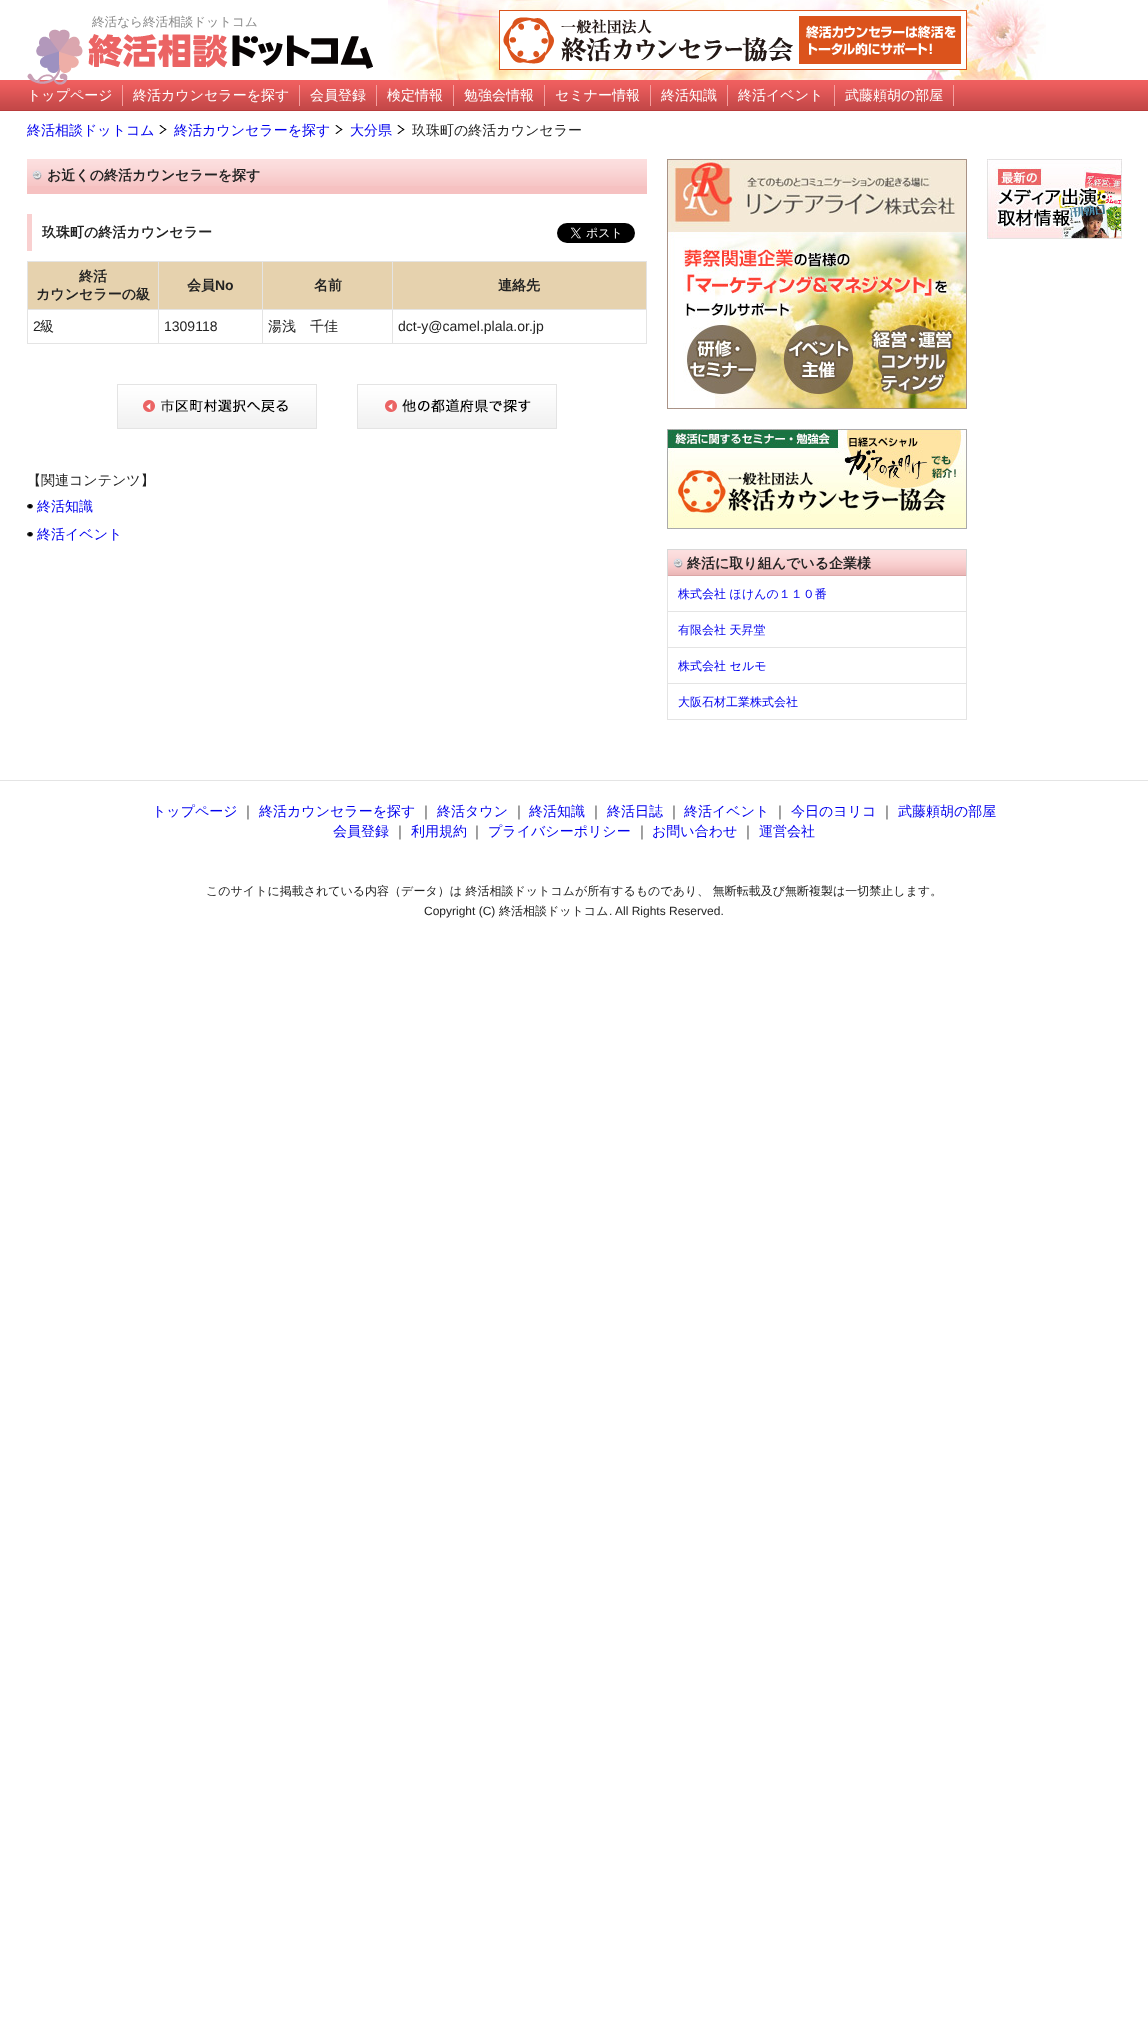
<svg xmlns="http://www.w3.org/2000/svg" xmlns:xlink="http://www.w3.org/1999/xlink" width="1148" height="2043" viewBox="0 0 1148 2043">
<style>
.cls-1{font:500 12.6px WenQuanYi Zen Hei;fill:#898989}
.cls-2{font:500 14px WenQuanYi Zen Hei;fill:#ffffff}
.cls-3{font:500 14px WenQuanYi Zen Hei;fill:#0000ee}
.cls-4{font:500 14px WenQuanYi Zen Hei;fill:#222222}
.cls-5{font:bold 14px WenQuanYi Zen Hei;fill:#222222}
.cls-6{font:bold 14px Liberation Sans;fill:#222222}
.cls-7{font:14px Liberation Sans;fill:#222222}
.cls-8{font:500 12px WenQuanYi Zen Hei;fill:#0000ee}
.cls-9{font:500 12px WenQuanYi Zen Hei;fill:#222222}
.cls-10{font:12px Liberation Sans;fill:#222222}
</style>
<rect width="100%" height="100%" fill="#ffffff"/>
<image xlink:href="image0.png" x="388" y="0" width="658" height="80"/>
<image xlink:href="image1.png" x="499" y="10" width="468" height="60"/>
<image xlink:href="image3.png" x="0" y="80" width="1148" height="31"/>
<image xlink:href="image2.png" x="27" y="29" width="346" height="56"/>
<rect fill="#f5a0a0" x="122" y="85" width="1" height="21"/>
<rect fill="#f5a0a0" x="299" y="85" width="1" height="21"/>
<rect fill="#f5a0a0" x="376" y="85" width="1" height="21"/>
<rect fill="#f5a0a0" x="453" y="85" width="1" height="21"/>
<rect fill="#f5a0a0" x="544" y="85" width="1" height="21"/>
<rect fill="#f5a0a0" x="650" y="85" width="1" height="21"/>
<rect fill="#f5a0a0" x="727" y="85" width="1" height="21"/>
<rect fill="#f5a0a0" x="834" y="85" width="1" height="21"/>
<rect fill="#f5a0a0" x="953" y="85" width="1" height="21"/>
<image xlink:href="image4.png" x="159" y="125" width="8" height="9"/>
<image xlink:href="image4.png" x="335" y="125" width="8" height="9"/>
<image xlink:href="image4.png" x="397" y="125" width="8" height="9"/>
<rect fill="#f6c1c1" x="27" y="186" width="620" height="8"/>
<image xlink:href="image5.png" x="27" y="159" width="620" height="27"/>
<rect fill="#f9d0d0" x="27" y="214" width="5" height="37"/>
<image xlink:href="image6.png" x="557" y="223" width="78" height="20"/>
<rect fill="#e4e4e4" x="27" y="261" width="620" height="1"/>
<rect fill="#e4e4e4" x="646" y="261" width="1" height="83"/>
<rect fill="#e4e4e4" x="27" y="343" width="620" height="1"/>
<rect fill="#e4e4e4" x="27" y="261" width="1" height="83"/>
<rect fill="#e6d2ae" x="28" y="262" width="130" height="47"/>
<rect fill="#e6d2ae" x="159" y="262" width="103" height="47"/>
<rect fill="#e4e4e4" x="392" y="309" width="255" height="1"/>
<rect fill="#e4e4e4" x="392" y="309" width="1" height="35"/>
<rect fill="#e4e4e4" x="262" y="309" width="131" height="1"/>
<rect fill="#e4e4e4" x="262" y="309" width="1" height="35"/>
<rect fill="#e4e4e4" x="158" y="309" width="105" height="1"/>
<rect fill="#e4e4e4" x="158" y="309" width="1" height="35"/>
<rect fill="#e4e4e4" x="27" y="309" width="132" height="1"/>
<rect fill="#e4e4e4" x="158" y="261" width="1" height="49"/>
<rect fill="#e6d2ae" x="263" y="262" width="129" height="47"/>
<rect fill="#e4e4e4" x="262" y="261" width="1" height="49"/>
<rect fill="#e6d2ae" x="393" y="262" width="253" height="47"/>
<rect fill="#e4e4e4" x="392" y="261" width="1" height="49"/>
<image xlink:href="image7.png" x="117" y="384" width="200" height="45"/>
<image xlink:href="image8.png" x="357" y="384" width="200" height="45"/>
<image xlink:href="image9.png" x="27" y="504" width="6" height="5"/>
<image xlink:href="image9.png" x="27" y="532" width="6" height="5"/>
<image xlink:href="image10.png" x="987" y="159" width="135" height="80"/>
<image xlink:href="image11.png" x="667" y="159" width="300" height="250"/>
<image xlink:href="image12.png" x="667" y="429" width="300" height="100"/>
<image xlink:href="image13.png" x="667" y="549" width="300" height="27"/>
<rect fill="#e4e4e4" x="966" y="576" width="1" height="144"/>
<rect fill="#e4e4e4" x="667" y="611" width="300" height="1"/>
<rect fill="#e4e4e4" x="667" y="576" width="1" height="36"/>
<rect fill="#e4e4e4" x="667" y="647" width="300" height="1"/>
<rect fill="#e4e4e4" x="667" y="612" width="1" height="36"/>
<rect fill="#e4e4e4" x="667" y="683" width="300" height="1"/>
<rect fill="#e4e4e4" x="667" y="648" width="1" height="36"/>
<rect fill="#e4e4e4" x="667" y="719" width="300" height="1"/>
<rect fill="#e4e4e4" x="667" y="684" width="1" height="36"/>
<rect fill="#e4e4e4" x="0" y="780" width="1148" height="1"/>
<text class="cls-1" x="92" y="26">終活なら終活相談ドットコム</text>
<text class="cls-2" x="27" y="100">トップページ</text>
<text class="cls-2" x="133" y="100">終活カウンセラーを探す</text>
<text class="cls-2" x="310" y="100">会員登録</text>
<text class="cls-2" x="387" y="100">検定情報</text>
<text class="cls-2" x="464" y="100">勉強会情報</text>
<text class="cls-2" x="555" y="100">セミナー情報</text>
<text class="cls-2" x="661" y="100">終活知識</text>
<text class="cls-2" x="738" y="100">終活イベント</text>
<text class="cls-2" x="845" y="100">武藤頼胡の部屋</text>
<text class="cls-3" x="27" y="135">終活相談ドットコム</text>
<text class="cls-3" x="174" y="135">終活カウンセラーを探す</text>
<text class="cls-3" x="350" y="135">大分県</text>
<text class="cls-4" x="412" y="135">玖珠町の終活カウンセラー</text>
<text class="cls-5" x="47" y="180">お近くの終活カウンセラーを探す</text>
<text class="cls-5" x="42" y="237">玖珠町の終活カウンセラー</text>
<text class="cls-5" x="79" y="281">終活</text>
<text class="cls-5" x="36" y="299">カウンセラーの級</text>
<text class="cls-5" x="187" y="290">会員</text>
<text class="cls-6" x="215" y="290">No</text>
<text class="cls-5" x="314" y="290">名前</text>
<text class="cls-5" x="498" y="290">連絡先</text>
<text class="cls-7" x="33" y="331">2</text>
<text class="cls-4" x="40" y="331">級</text>
<text class="cls-7" x="164" y="331">1309118</text>
<text class="cls-4" x="268" y="331">湯浅　千佳</text>
<text class="cls-7" x="398" y="331">dct-y@camel.plala.or.jp</text>
<text class="cls-4" x="27" y="485">【関連コンテンツ】</text>
<text class="cls-3" x="37" y="511">終活知識</text>
<text class="cls-3" x="37" y="539">終活イベント</text>
<text class="cls-5" x="687" y="568">終活に取り組んでいる企業様</text>
<text class="cls-8" x="678" y="598">株式会社 ほけんの１１０番</text>
<text class="cls-8" x="678" y="634">有限会社 天昇堂</text>
<text class="cls-8" x="678" y="670">株式会社 セルモ</text>
<text class="cls-8" x="678" y="706">大阪石材工業株式会社</text>
<text class="cls-3" x="152" y="816">トップページ</text>
<text class="cls-4" x="241" y="816">｜</text>
<text class="cls-3" x="259" y="816">終活カウンセラーを探す</text>
<text class="cls-4" x="419" y="816">｜</text>
<text class="cls-3" x="437" y="816">終活タウン</text>
<text class="cls-4" x="512" y="816">｜</text>
<text class="cls-3" x="529" y="816">終活知識</text>
<text class="cls-4" x="589" y="816">｜</text>
<text class="cls-3" x="607" y="816">終活日誌</text>
<text class="cls-4" x="667" y="816">｜</text>
<text class="cls-3" x="684" y="816">終活イベント</text>
<text class="cls-4" x="773" y="816">｜</text>
<text class="cls-3" x="791" y="816">今日のヨリコ</text>
<text class="cls-4" x="880" y="816">｜</text>
<text class="cls-3" x="898" y="816">武藤頼胡の部屋</text>
<text class="cls-3" x="333" y="836">会員登録</text>
<text class="cls-4" x="393" y="836">｜</text>
<text class="cls-3" x="411" y="836">利用規約</text>
<text class="cls-4" x="470" y="836">｜</text>
<text class="cls-3" x="488" y="836">プライバシーポリシー</text>
<text class="cls-4" x="635" y="836">｜</text>
<text class="cls-3" x="652" y="836">お問い合わせ</text>
<text class="cls-4" x="741" y="836">｜</text>
<text class="cls-3" x="759" y="836">運営会社</text>
<text class="cls-9" x="206" y="895">このサイトに掲載されている内容（データ）は 終活相談ドットコムが所有するものであり、 無断転載及び無断複製は一切禁止します。</text>
<text class="cls-10" x="424" y="915">Copyright (C)</text>
<text class="cls-9" x="499" y="915">終活相談ドットコム</text>
<text class="cls-10" x="609" y="915">. All Rights Reserved.</text>
</svg>
